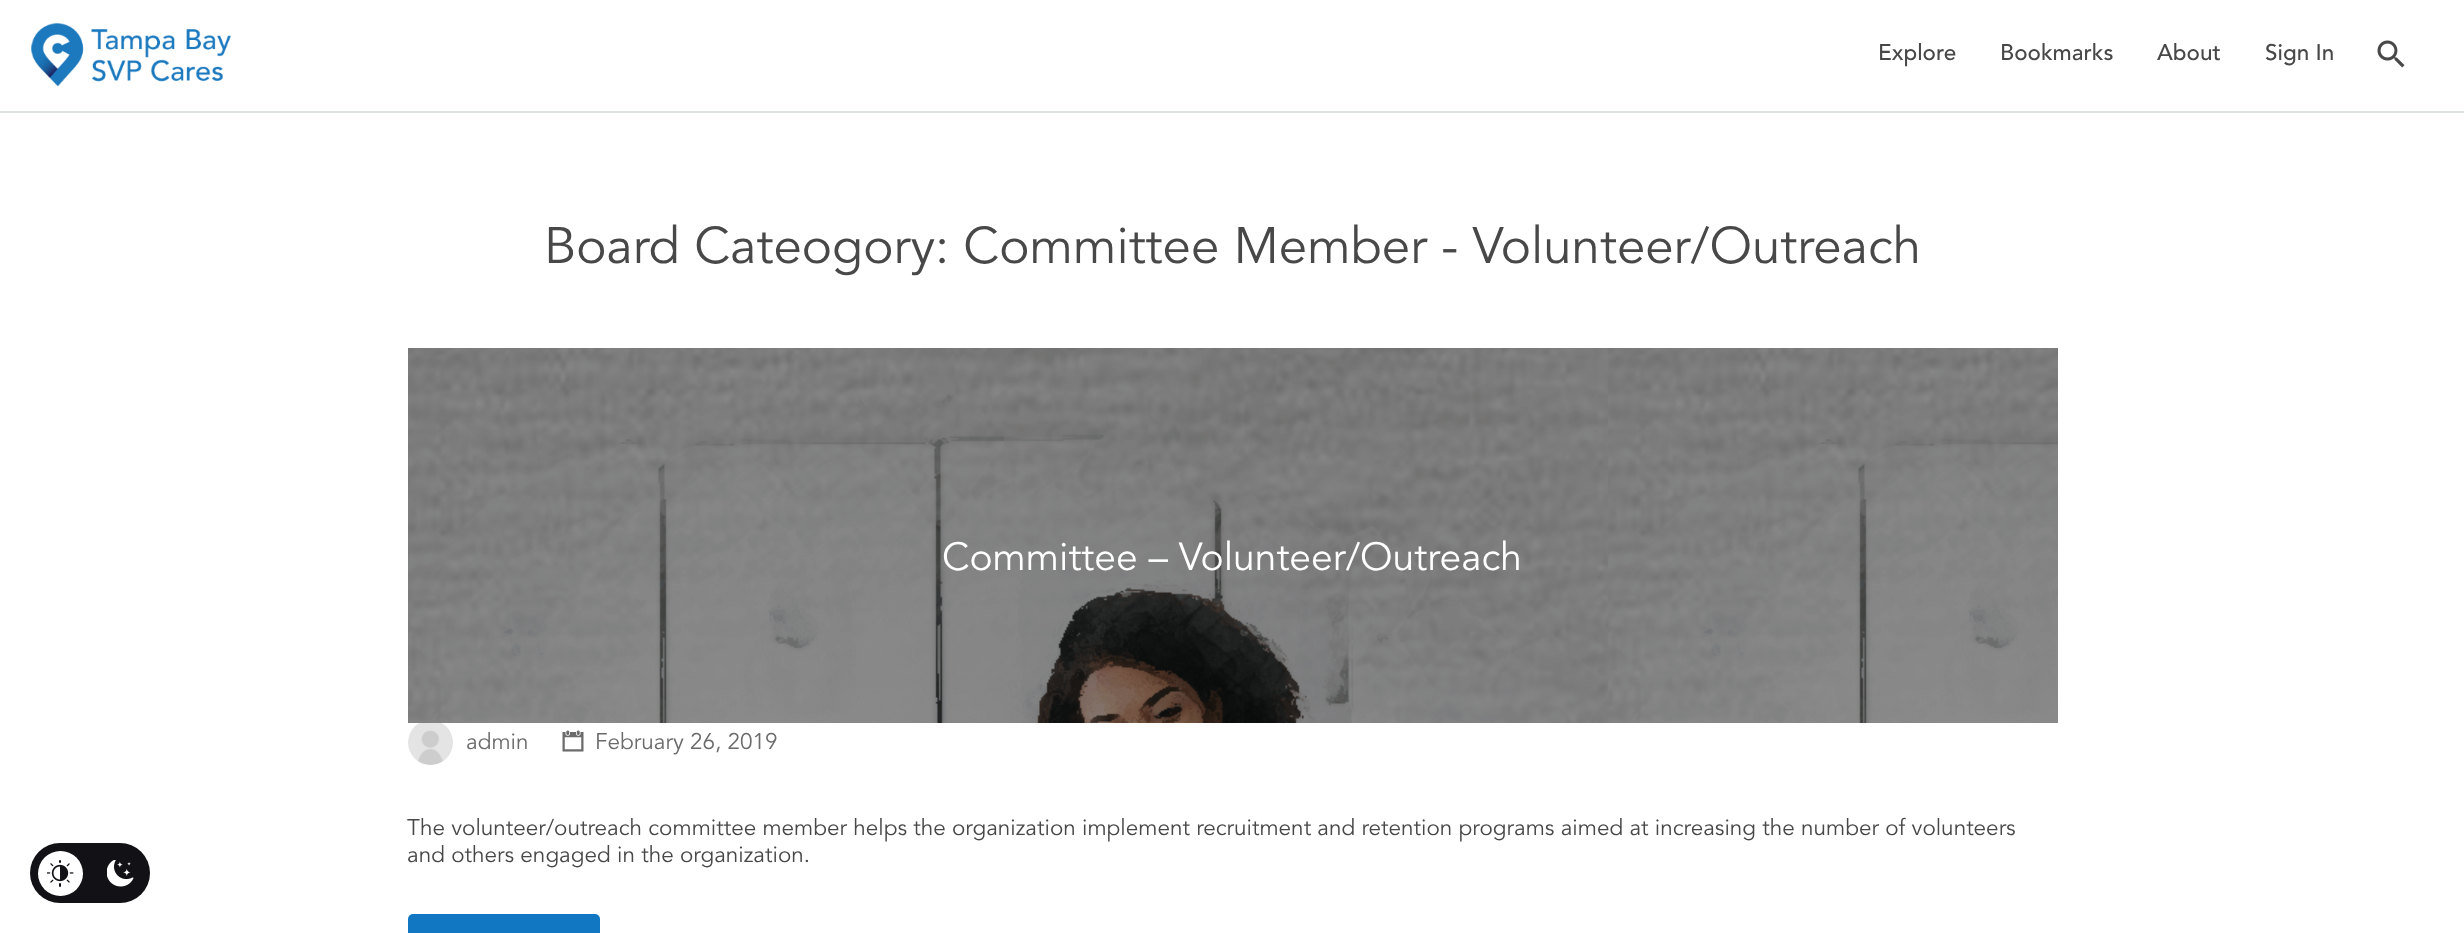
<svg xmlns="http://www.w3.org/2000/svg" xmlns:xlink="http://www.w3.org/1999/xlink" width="2464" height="933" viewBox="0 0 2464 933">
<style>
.cls-1{font:500 22.5px Avenir;fill:#484848}
.cls-2{font:51px Avenir;fill:#484848}
.cls-3{font:39px Avenir;fill:#ffffff}
.cls-4{font:22.5px Avenir;fill:#6b6b6b}
.cls-5{font:22.5px Avenir;fill:#484848}
</style>
<rect width="100%" height="100%" fill="#ffffff"/>
<rect fill="#121116" x="30" y="843" width="120" height="60" rx="30"/>
<circle fill="#ffffff" cx="60.5" cy="873.5" r="22.5"/>
<image xlink:href="image0.png" x="47" y="860" width="27" height="27"/>
<image xlink:href="image1.png" x="107" y="860" width="27" height="27"/>
<rect fill="#dce0e0" x="0" y="111" width="2464" height="2"/>
<image xlink:href="image2.png" x="31" y="23" width="200" height="64"/>
<image xlink:href="image3.png" x="2377" y="40" width="28" height="28"/>
<image xlink:href="image4.png" x="408" y="348" width="1650" height="375"/>
<image xlink:href="image5.png" x="408" y="723" width="45" height="42"/>
<image xlink:href="image6.png" x="562" y="730" width="22" height="22"/>
<rect fill="#1177c2" x="408" y="914" width="192" height="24" rx="5"/>
<text class="cls-1" x="1878" y="60">Explore</text>
<text class="cls-1" x="2000" y="60">Bookmarks</text>
<text class="cls-1" x="2157" y="60">About</text>
<text class="cls-1" x="2265" y="60">Sign In</text>
<text class="cls-2" x="544" y="263">Board Cateogory: Committee Member - Volunteer/Outreach</text>
<text class="cls-3" x="942" y="570">Committee – Volunteer/Outreach</text>
<text class="cls-4" x="466" y="749">admin</text>
<text class="cls-4" x="595" y="749">February 26, 2019</text>
<text class="cls-5"><tspan x="407" y="835">The volunteer/outreach committee member helps the organization implement recruitment and retention programs aimed at increasing the number of volunteers</tspan><tspan x="407" y="862">and others engaged in the organization.</tspan></text>
</svg>
